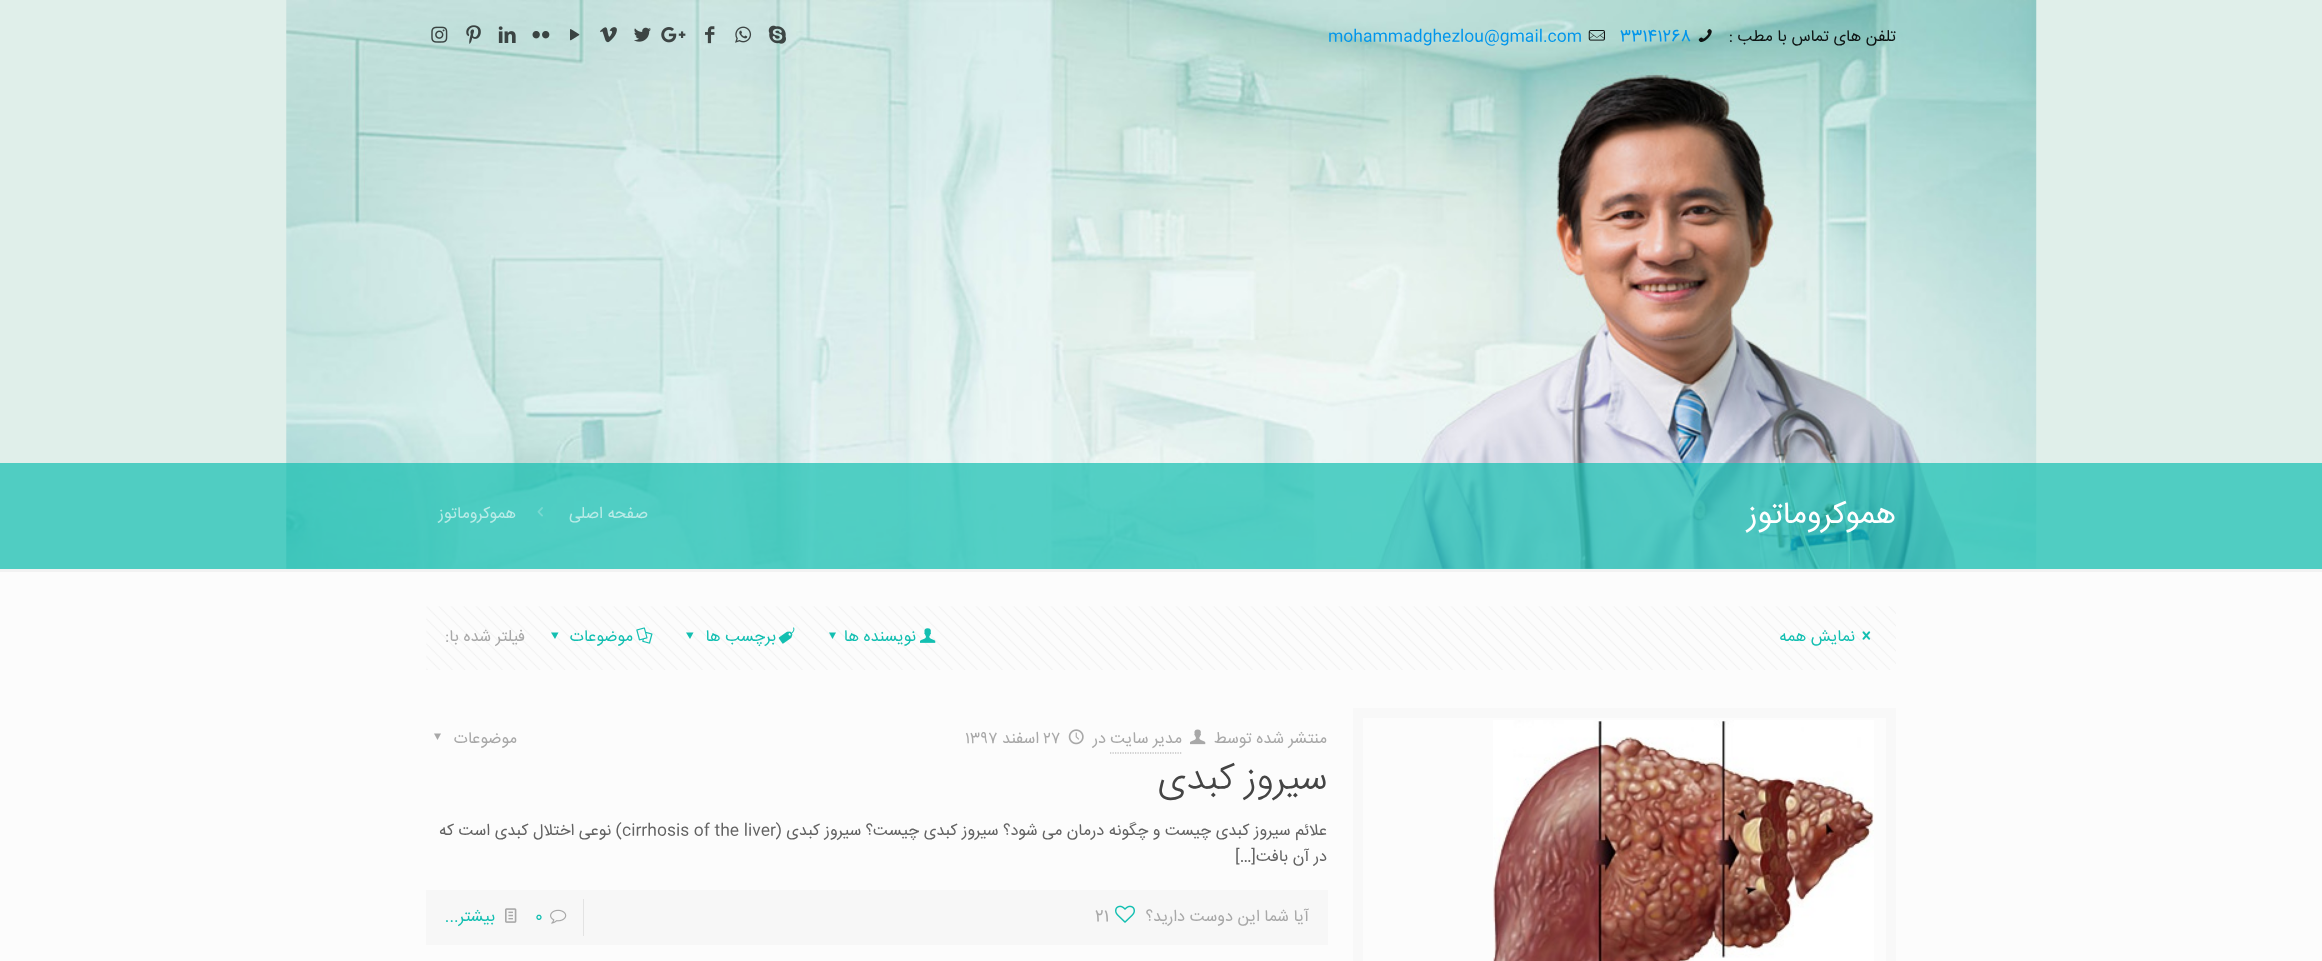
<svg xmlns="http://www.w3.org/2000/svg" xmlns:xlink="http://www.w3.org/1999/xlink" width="2322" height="961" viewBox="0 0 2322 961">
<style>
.cls-1{font:16.25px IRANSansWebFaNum;direction:rtl;fill:#0e1413}
.cls-2{font:16.25px IRANSansWebFaNum;fill:#0095eb}
.cls-3{font:31.25px IRANSansWebFaNum;direction:rtl;fill:#ffffff}
.cls-4{font:16.25px IRANSansWebFaNum;direction:rtl;fill:#b9ebe7}
.cls-5{font:16.25px IRANSansWebFaNum;direction:rtl;fill:#13bfb1}
.cls-6{font:16.25px IRANSansWebFaNum;direction:rtl;fill:#a8a8a8}
.cls-7{font:16.25px IRANSansWebFaNum;fill:#a8a8a8}
.cls-8{font:300 37.5px IRANSansWebFaNum;direction:rtl;fill:#444444}
.cls-9{font:16.25px IRANSansWebFaNum;direction:rtl;fill:#626262}
.cls-10{font:16.25px IRANSansWebFaNum;fill:#626262}
.cls-11{font:16.25px IRANSansWebFaNum;fill:#13bfb1}
</style>
<rect width="100%" height="100%" fill="#fcfcfc"/>
<rect fill="#e0efea" x="0" y="0" width="2322" height="569"/>
<image xlink:href="image0.png" x="286" y="0" width="1751" height="569"/>
<image xlink:href="image1.png" x="1698" y="29" width="14" height="14"/>
<image xlink:href="image2.png" x="1588" y="30" width="17" height="11"/>
<image xlink:href="image3.png" x="768" y="25" width="18" height="19"/>
<image xlink:href="image4.png" x="735" y="26" width="17" height="17"/>
<image xlink:href="image5.png" x="705" y="26" width="10" height="18"/>
<image xlink:href="image6.png" x="661" y="27" width="25" height="16"/>
<image xlink:href="image7.png" x="634" y="27" width="17" height="15"/>
<image xlink:href="image8.png" x="600" y="27" width="17" height="16"/>
<image xlink:href="image9.png" x="570" y="29" width="10" height="12"/>
<image xlink:href="image10.png" x="532" y="31" width="18" height="8"/>
<image xlink:href="image11.png" x="498" y="26" width="18" height="17"/>
<image xlink:href="image12.png" x="466" y="25" width="15" height="19"/>
<image xlink:href="image13.png" x="431" y="26" width="17" height="17"/>
<rect fill="#13bfb1" fill-opacity="0.7" x="0" y="463" width="2322" height="106"/>
<image xlink:href="image14.png" x="537" y="507" width="6" height="10"/>
<rect fill="#f2f2f2" x="0" y="569" width="2322" height="3"/>
<image xlink:href="image15.png" x="426" y="606" width="1470" height="64"/>
<image xlink:href="image16.png" x="1862" y="631" width="9" height="9"/>
<image xlink:href="image17.png" x="920" y="628" width="16" height="15"/>
<path fill="#13bfb1" d="M836 632.5L832.5 639L829 632.5Z"/>
<image xlink:href="image18.png" x="778" y="627" width="17" height="17"/>
<path fill="#13bfb1" d="M693.5 632.5L690 639L686 632.5Z"/>
<image xlink:href="image19.png" x="636" y="627" width="17" height="17"/>
<path fill="#13bfb1" d="M558.5 632.5L555 639L551 632.5Z"/>
<rect fill="none" stroke="#f8f8f8" stroke-width="10" x="1358" y="713" width="533" height="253"/>
<image xlink:href="image20.png" x="1493" y="720" width="381" height="241"/>
<image xlink:href="image21.png" x="1190" y="729" width="16" height="16"/>
<path fill="none" stroke="#a8a8a8" stroke-width="1.2" stroke-dasharray="1.25 1.25" d="M1110 753H1182.5"/>
<image xlink:href="image22.png" x="1068" y="729" width="16" height="16"/>
<path fill="#a8a8a8" d="M441 733.5L437.5 740L434 733.5Z"/>
<rect fill="#f7f7f7" x="426" y="890" width="902" height="55"/>
<image xlink:href="image23.png" x="1115" y="905" width="20" height="18"/>
<rect fill="#e3e3e3" x="583" y="899" width="1" height="37"/>
<image xlink:href="image24.png" x="550" y="909" width="17" height="15"/>
<image xlink:href="image25.png" x="505" y="908" width="12" height="15"/>
<text class="cls-1" x="1896" y="41">تلفن های تماس با مطب :</text>
<text class="cls-2" x="1620" y="41">33141268</text>
<text class="cls-2" x="1328" y="41">mohammadghezlou@gmail.com</text>
<text class="cls-3" x="1896" y="523">هموکروماتوز</text>
<text class="cls-4" x="648" y="518">صفحه اصلی</text>
<text class="cls-4" x="516" y="518">هموکروماتوز</text>
<text class="cls-5" x="1855" y="641">نمایش همه</text>
<text class="cls-5" x="916" y="641">نویسنده ها</text>
<text class="cls-5" x="776" y="641">برچسب ها</text>
<text class="cls-5" x="633" y="641">موضوعات</text>
<text class="cls-6" x="525" y="641">فیلتر شده با:</text>
<text class="cls-6" x="1327" y="743">منتشر شده توسط</text>
<text class="cls-6" x="1182" y="743">مدیر سایت</text>
<text class="cls-6" x="1106" y="743">در</text>
<text class="cls-7" x="1043" y="743">۲۷</text>
<text class="cls-6" x="1039" y="743">اسفند</text>
<text class="cls-7" x="965" y="743">۱۳۹۷</text>
<text class="cls-6" x="517" y="743">موضوعات</text>
<text class="cls-8" x="1327" y="789">سیروز کبدی</text>
<text class="cls-9" x="1327" y="835">علائم سیروز کبدی چیست و چگونه درمان می شود؟ سیروز کبدی چیست؟ سیروز کبدی (</text>
<text class="cls-10" x="622" y="835">cirrhosis of the liver</text>
<text class="cls-9" x="622" y="835">) نوعی اختلال کبدی است که</text>
<text class="cls-9" x="1327" y="861">در آن بافت</text>
<text class="cls-10" x="1235" y="861">[…]</text>
<text class="cls-6" x="1309" y="921">آیا شما این دوست دارید؟</text>
<text class="cls-7" x="1095" y="921">21</text>
<text class="cls-11" x="535" y="921">0</text>
<text class="cls-5" x="495" y="921">بیشتر...</text>
</svg>
